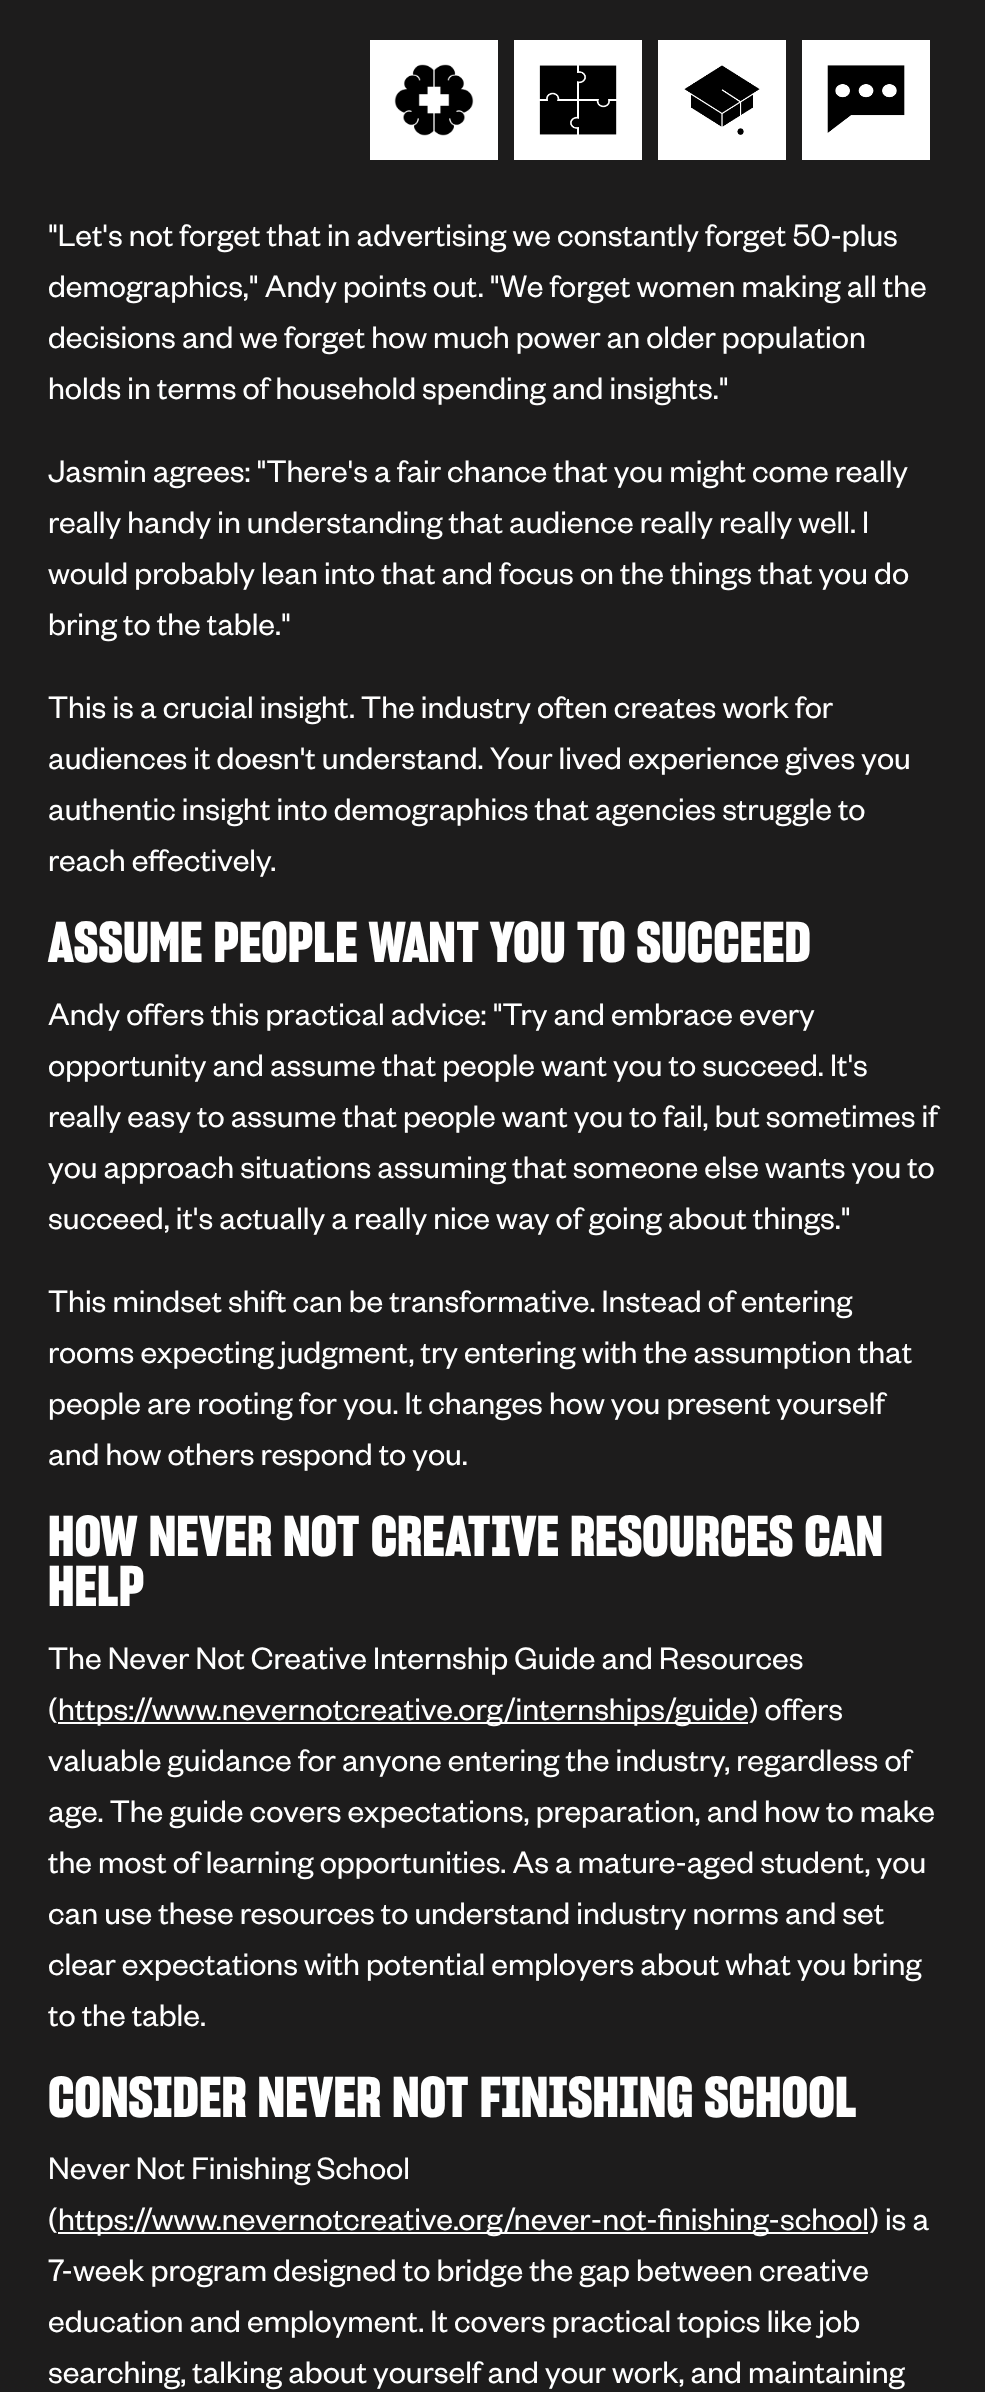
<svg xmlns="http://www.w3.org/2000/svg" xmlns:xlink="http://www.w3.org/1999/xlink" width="985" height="2392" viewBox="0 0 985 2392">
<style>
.cls-1{font:34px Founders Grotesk;fill:#ffffff}
.cls-2{font:bold 56px 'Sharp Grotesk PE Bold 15';fill:#ffffff}
</style>
<rect width="100%" height="100%" fill="#1d1c1c"/>
<rect fill="#ffffff" x="370" y="40" width="128" height="120"/>
<image xlink:href="image0.png" x="394" y="64" width="80" height="72"/>
<rect fill="#ffffff" x="514" y="40" width="128" height="120"/>
<image xlink:href="image1.png" x="539" y="65" width="78" height="70"/>
<rect fill="#ffffff" x="658" y="40" width="128" height="120"/>
<image xlink:href="image2.png" x="684" y="65" width="76" height="70"/>
<rect fill="#ffffff" x="802" y="40" width="128" height="120"/>
<image xlink:href="image3.png" x="827" y="65" width="78" height="68"/>
<rect fill="#ffffff" x="58" y="1722" width="690" height="2"/>
<rect fill="#ffffff" x="58" y="2232" width="810" height="2"/>
<text class="cls-1"><tspan x="48" y="246">"Let's not forget that in advertising we constantly forget 50-plus</tspan><tspan x="48" y="297">demographics," Andy points out. "We forget women making all the</tspan><tspan x="48" y="348">decisions and we forget how much power an older population</tspan><tspan x="48" y="399">holds in terms of household spending and insights."</tspan></text>
<text class="cls-1"><tspan x="48" y="482">Jasmin agrees: "There's a fair chance that you might come really</tspan><tspan x="48" y="533">really handy in understanding that audience really really well. I</tspan><tspan x="48" y="584">would probably lean into that and focus on the things that you do</tspan><tspan x="48" y="635">bring to the table."</tspan></text>
<text class="cls-1"><tspan x="48" y="718">This is a crucial insight. The industry often creates work for</tspan><tspan x="48" y="769">audiences it doesn't understand. Your lived experience gives you</tspan><tspan x="48" y="820">authentic insight into demographics that agencies struggle to</tspan><tspan x="48" y="871">reach effectively.</tspan></text>
<text class="cls-2" x="48" y="962">ASSUME PEOPLE WANT YOU TO SUCCEED</text>
<text class="cls-1"><tspan x="48" y="1025">Andy offers this practical advice: "Try and embrace every</tspan><tspan x="48" y="1076">opportunity and assume that people want you to succeed. It's</tspan><tspan x="48" y="1127">really easy to assume that people want you to fail, but sometimes if</tspan><tspan x="48" y="1178">you approach situations assuming that someone else wants you to</tspan><tspan x="48" y="1229">succeed, it's actually a really nice way of going about things."</tspan></text>
<text class="cls-1"><tspan x="48" y="1312">This mindset shift can be transformative. Instead of entering</tspan><tspan x="48" y="1363">rooms expecting judgment, try entering with the assumption that</tspan><tspan x="48" y="1414">people are rooting for you. It changes how you present yourself</tspan><tspan x="48" y="1465">and how others respond to you.</tspan></text>
<text class="cls-2"><tspan x="48" y="1556">HOW NEVER NOT CREATIVE RESOURCES CAN</tspan><tspan x="48" y="1606">HELP</tspan></text>
<text class="cls-1"><tspan x="48" y="1669">The Never Not Creative Internship Guide and Resources</tspan><tspan x="48" y="1720">(</tspan></text>
<text class="cls-1" x="58" y="1720">https://www.nevernotcreative.org/internships/guide) offers</text>
<text class="cls-1"><tspan x="48" y="1771">valuable guidance for anyone entering the industry, regardless of</tspan><tspan x="48" y="1822">age. The guide covers expectations, preparation, and how to make</tspan><tspan x="48" y="1873">the most of learning opportunities. As a mature-aged student, you</tspan><tspan x="48" y="1924">can use these resources to understand industry norms and set</tspan><tspan x="48" y="1975">clear expectations with potential employers about what you bring</tspan><tspan x="48" y="2026">to the table.</tspan></text>
<text class="cls-2" x="48" y="2117">CONSIDER NEVER NOT FINISHING SCHOOL</text>
<text class="cls-1"><tspan x="48" y="2179">Never Not Finishing School</tspan><tspan x="48" y="2230">(</tspan></text>
<text class="cls-1" x="58" y="2230">https://www.nevernotcreative.org/never-not-finishing-school) is a</text>
<text class="cls-1"><tspan x="48" y="2281">7-week program designed to bridge the gap between creative</tspan><tspan x="48" y="2332">education and employment. It covers practical topics like job</tspan><tspan x="48" y="2383">searching, talking about yourself and your work, and maintaining</tspan></text>
</svg>
